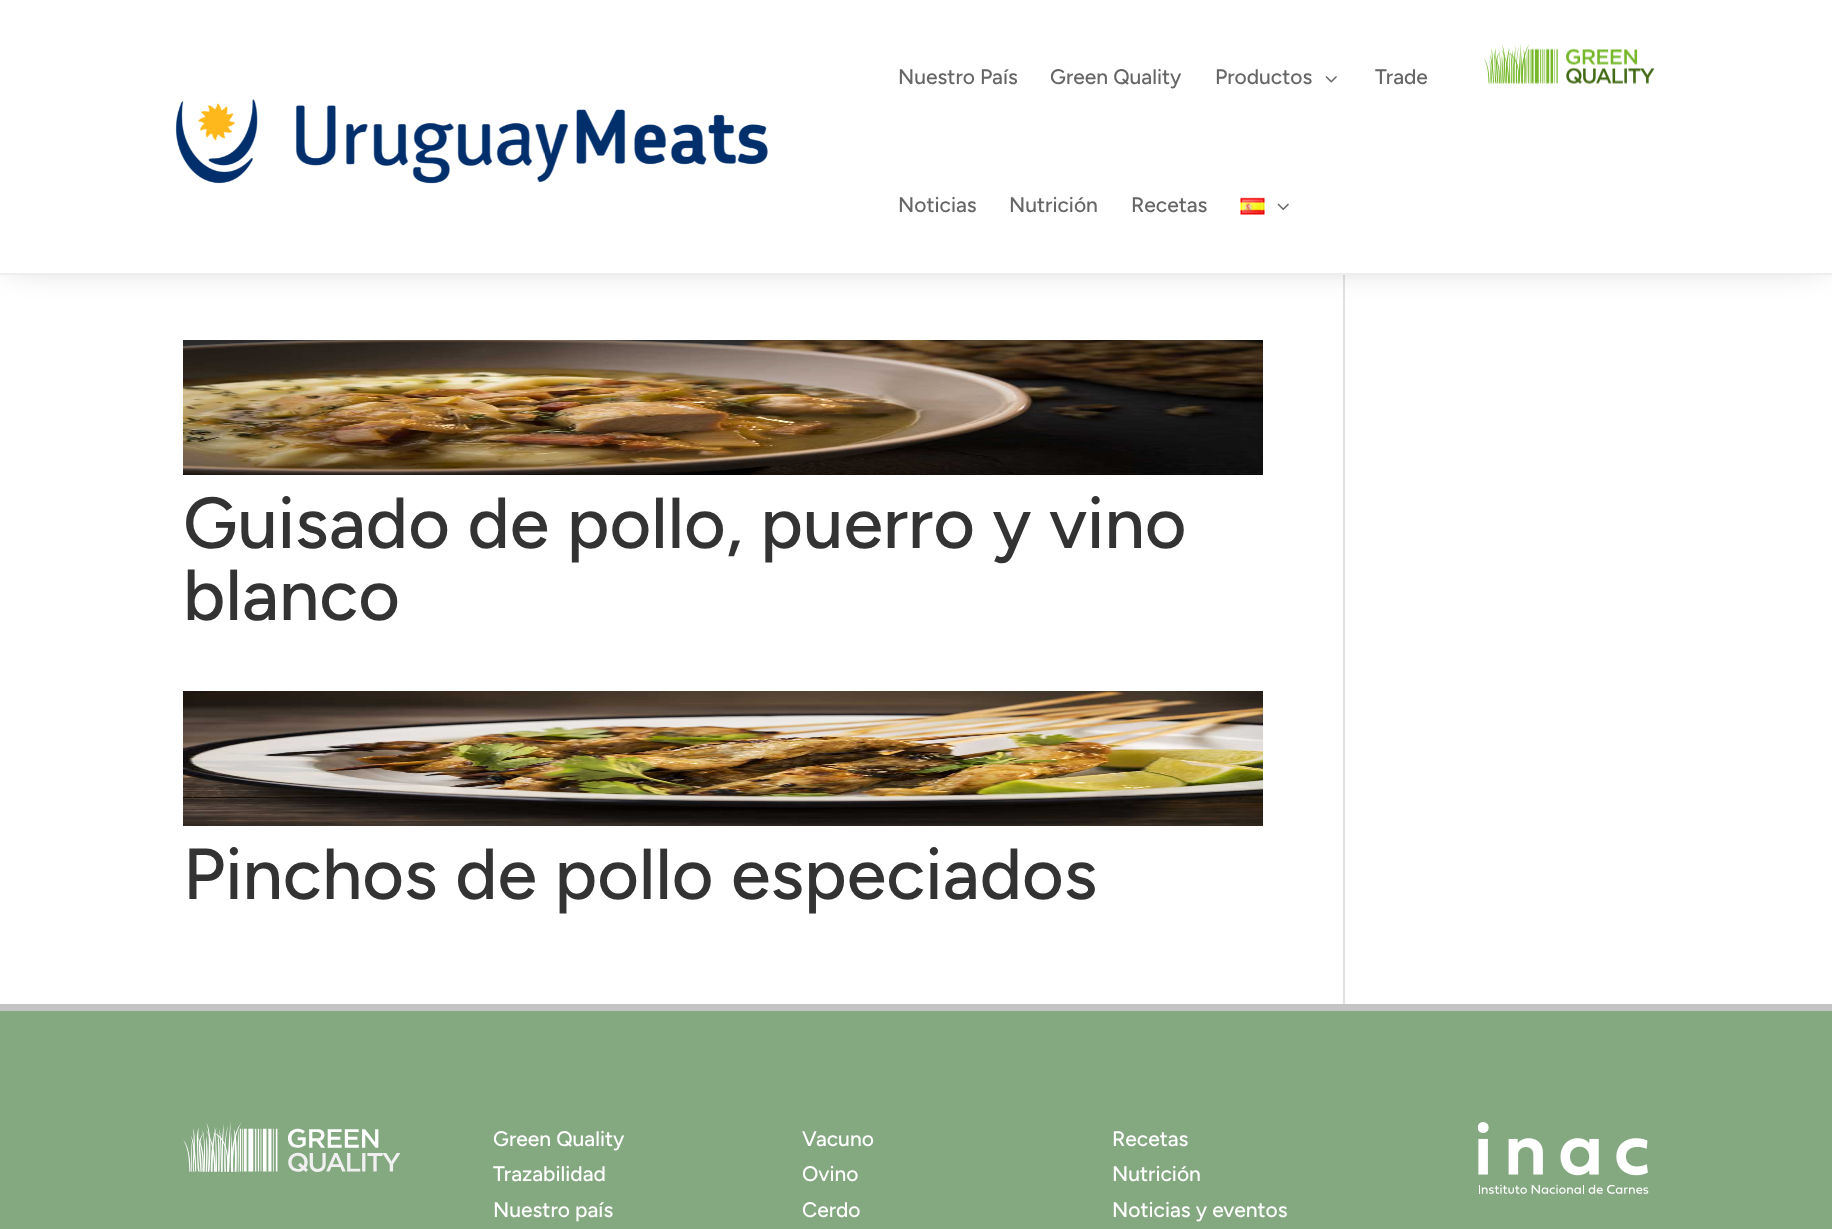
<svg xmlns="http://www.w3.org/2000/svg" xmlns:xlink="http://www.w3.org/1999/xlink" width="1832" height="1229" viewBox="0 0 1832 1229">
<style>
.cls-1{font:300 21px Figtree;fill:#666666}
.cls-2{font:300 72px Figtree;fill:#333333}
.cls-3{font:300 21px Figtree;fill:#ffffff}
</style>
<rect width="100%" height="100%" fill="#ffffff"/>
<rect fill="#e2e2e2" x="1343" y="275" width="2" height="729"/>
<rect fill="#000000" fill-opacity="0.3" filter="blur(17px)" x="9" y="5" width="1815" height="256"/>
<rect fill="#ffffff" x="0" y="0" width="1832" height="273"/>
<rect fill="#efeded" x="0" y="273" width="1832" height="2"/>
<image xlink:href="image0.png" x="1484" y="43" width="171" height="41"/>
<image xlink:href="image1.png" x="175" y="99" width="593" height="85"/>
<image xlink:href="image2.png" x="1325" y="76" width="12" height="7"/>
<image xlink:href="image3.png" x="1240" y="197" width="25" height="18"/>
<image xlink:href="image4.png" x="1277" y="203" width="12" height="7"/>
<image xlink:href="image5.png" x="183" y="340" width="1080" height="135"/>
<image xlink:href="image6.png" x="183" y="691" width="1080" height="135"/>
<rect fill="#84a880" x="0" y="1011" width="1832" height="218"/>
<rect fill="#c4c4c4" x="0" y="1004" width="1832" height="7"/>
<image xlink:href="image7.png" x="183" y="1122" width="218" height="50"/>
<image xlink:href="image8.png" x="1478" y="1122" width="171" height="72"/>
<text class="cls-1" x="898" y="84">Nuestro País</text>
<text class="cls-1" x="1050" y="84">Green Quality</text>
<text class="cls-1" x="1215" y="84">Productos</text>
<text class="cls-1" x="1375" y="84">Trade</text>
<text class="cls-1" x="898" y="212">Noticias</text>
<text class="cls-1" x="1009" y="212">Nutrición</text>
<text class="cls-1" x="1131" y="212">Recetas</text>
<text class="cls-2"><tspan x="183" y="548">Guisado de pollo, puerro y vino</tspan><tspan x="183" y="620">blanco</tspan></text>
<text class="cls-2" x="183" y="899">Pinchos de pollo especiados</text>
<text class="cls-3"><tspan x="493" y="1146">Green Quality</tspan><tspan x="493" y="1181">Trazabilidad</tspan><tspan x="493" y="1217">Nuestro país</tspan></text>
<text class="cls-3"><tspan x="802" y="1146">Vacuno</tspan><tspan x="802" y="1181">Ovino</tspan><tspan x="802" y="1217">Cerdo</tspan></text>
<text class="cls-3"><tspan x="1112" y="1146">Recetas</tspan><tspan x="1112" y="1181">Nutrición</tspan><tspan x="1112" y="1217">Noticias y eventos</tspan></text>
</svg>
